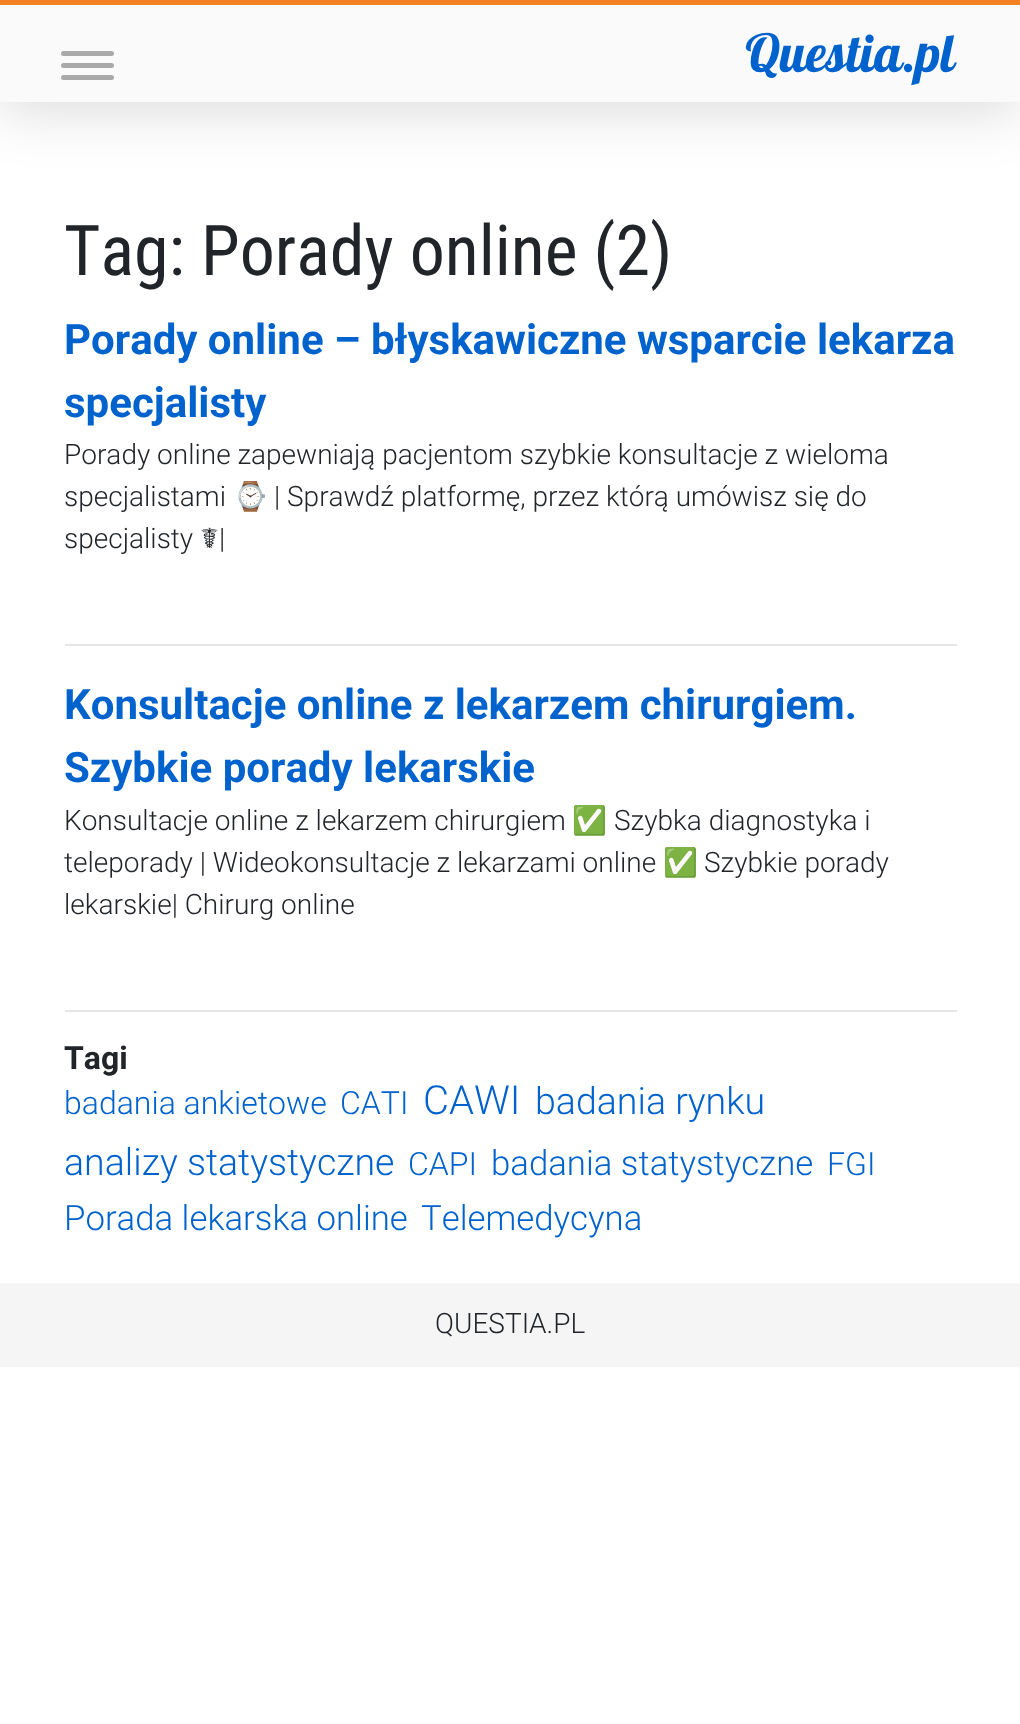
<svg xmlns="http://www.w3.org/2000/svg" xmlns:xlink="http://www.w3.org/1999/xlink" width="1020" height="1724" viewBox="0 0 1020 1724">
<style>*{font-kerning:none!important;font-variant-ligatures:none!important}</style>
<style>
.cls-1{font:52.5px Lobster;fill:#0062cc}
.cls-2{font:70px Roboto Condensed;fill:#212529}
.cls-3{font:bold 42px Roboto;fill:#0062cc}
.cls-4{font:300 28px Roboto;fill:#212529}
.cls-5{font:28px Noto Color Emoji;fill:#212529}
.cls-6{font:28px DejaVu Sans;fill:#212529}
.cls-7{font:bold 32px Roboto;fill:#212529}
.cls-8{font:300 32px Roboto;fill:#0062cc}
.cls-9{font:300 40px Roboto;fill:#0062cc}
.cls-10{font:300 37.5px Roboto;fill:#0062cc}
.cls-11{font:300 34.75px Roboto;fill:#0062cc}
</style>
<rect width="100%" height="100%" fill="#ffffff"/>
<rect fill="#000000" fill-opacity="0.15" filter="blur(29px)" x="0" y="7" width="1020" height="102"/>
<rect fill="#fafafb" x="0" y="5" width="1020" height="97"/>
<rect fill="#f48024" x="0" y="0" width="1020" height="5"/>
<rect fill="#aaaaaa" x="61" y="51" width="53" height="5" rx="2.5"/>
<rect fill="#aaaaaa" x="61" y="63" width="53" height="5" rx="2.5"/>
<rect fill="#aaaaaa" x="61" y="75" width="53" height="5" rx="2.5"/>
<rect fill="#e6e6e6" x="65" y="644" width="892" height="2"/>
<rect fill="#e6e6e6" x="65" y="1010" width="892" height="2"/>
<rect fill="#f5f5f5" x="0" y="1283" width="1020" height="84"/>
<text class="cls-1" x="745" y="72">Questia.pl</text>
<text class="cls-2" x="64" y="275">Tag: Porady online (2)</text>
<text class="cls-3"><tspan x="64" y="354">Porady online – błyskawiczne wsparcie lekarza</tspan><tspan x="64" y="417">specjalisty</tspan></text>
<text class="cls-4"><tspan x="64" y="464">Porady online zapewniają pacjentom szybkie konsultacje z wieloma</tspan><tspan x="64" y="506">specjalistami</tspan></text>
<text class="cls-5" x="233" y="506">⌚</text>
<text class="cls-4" x="274" y="506">| Sprawdź platformę, przez którą umówisz się do</text>
<text class="cls-4" x="64" y="548">specjalisty</text>
<text class="cls-6" x="200" y="548">☤</text>
<text class="cls-4" x="219" y="548">|</text>
<text class="cls-3"><tspan x="64" y="719">Konsultacje online z lekarzem chirurgiem.</tspan><tspan x="64" y="782">Szybkie porady lekarskie</tspan></text>
<text class="cls-4" x="64" y="830">Konsultacje online z lekarzem chirurgiem</text>
<text class="cls-5" x="572" y="830">✅</text>
<text class="cls-4" x="614" y="830">Szybka diagnostyka i</text>
<text class="cls-4" x="64" y="872">teleporady | Wideokonsultacje z lekarzami online</text>
<text class="cls-5" x="663" y="872">✅</text>
<text class="cls-4" x="704" y="872">Szybkie porady</text>
<text class="cls-4" x="64" y="914">lekarskie| Chirurg online</text>
<text class="cls-7" x="64" y="1069">Tagi</text>
<text class="cls-8" x="64" y="1114">badania ankietowe</text>
<text class="cls-8" x="340" y="1114">CATI</text>
<text class="cls-9" x="423" y="1114">CAWI</text>
<text class="cls-10" x="535" y="1114">badania rynku</text>
<text class="cls-10" x="64" y="1175">analizy statystyczne</text>
<text class="cls-8" x="408" y="1175">CAPI</text>
<text class="cls-11" x="491" y="1175">badania statystyczne</text>
<text class="cls-8" x="827" y="1175">FGI</text>
<text class="cls-11" x="64" y="1230">Porada lekarska online</text>
<text class="cls-11" x="421" y="1230">Telemedycyna</text>
<text class="cls-4" x="435" y="1333">QUESTIA.PL</text>
</svg>
